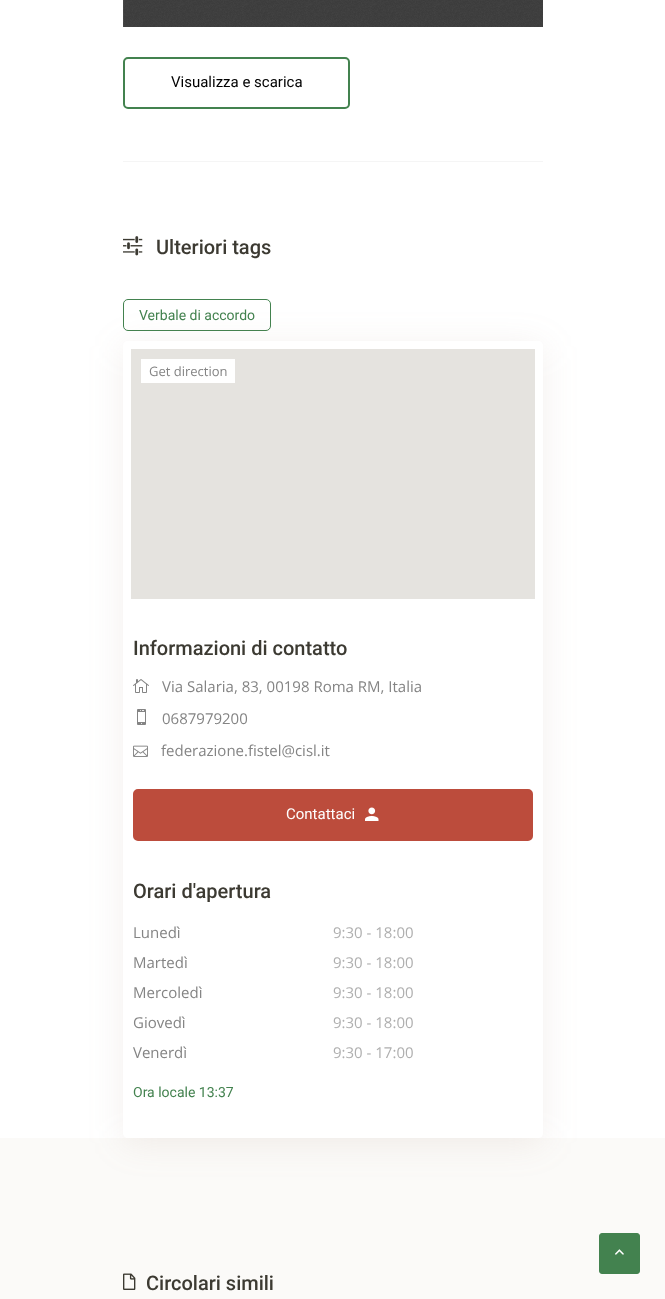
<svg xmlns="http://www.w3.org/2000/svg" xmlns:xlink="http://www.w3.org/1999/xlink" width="665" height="1299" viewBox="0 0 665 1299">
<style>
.cls-1{font:15px Roboto;fill:#000000}
.cls-2{font:500 20px Roboto;fill:#3c3a32}
.cls-3{font:14px Roboto;fill:#43824f}
.cls-4{font:13px Open Sans;fill:#848484}
.cls-5{font:15px Open Sans;fill:#848484}
.cls-6{font:15px Roboto;fill:#ffffff}
.cls-7{font:15px Open Sans;fill:#afafaf}
</style>
<defs>
<clipPath id="clip1"><path d="M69 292H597V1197H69ZM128 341H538C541 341 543 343 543 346V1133C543 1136 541 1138 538 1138H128C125 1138 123 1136 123 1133V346C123 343 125 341 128 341Z" clip-rule="evenodd"/></clipPath>
</defs>
<rect width="100%" height="100%" fill="#ffffff"/>
<rect fill="#f5f5f5" x="123" y="161" width="420" height="1"/>
<image xlink:href="image0.png" x="123" y="0" width="420" height="27"/>
<rect fill="none" stroke="#43824f" stroke-width="2" x="124" y="58" width="225" height="50" rx="4"/>
<image xlink:href="image1.png" x="123" y="236" width="20" height="20"/>
<rect fill="none" stroke="#43824f" x="123.5" y="299.5" width="147" height="31" rx="4.5"/>
<rect fill="#fbfaf8" x="0" y="1138" width="665" height="161"/>
<g clip-path="url(#clip1)">
<rect fill="#9e7f67" fill-opacity="0.12" filter="blur(17.5px)" x="123" y="346" width="420" height="797" rx="5"/>
</g>
<rect fill="#e5e3df" x="131" y="349" width="404" height="250"/>
<rect fill="#ffffff" x="141" y="359" width="94" height="24"/>
<image xlink:href="image2.png" x="133" y="679" width="16" height="14"/>
<image xlink:href="image3.png" x="137" y="709" width="9" height="16"/>
<image xlink:href="image4.png" x="133" y="745" width="15" height="12"/>
<rect fill="#bc4c3c" stroke="#bc4c3c" stroke-width="2" x="134" y="790" width="398" height="50" rx="4"/>
<image xlink:href="image5.png" x="365" y="807" width="14" height="14"/>
<image xlink:href="image6.png" x="123" y="1273" width="13" height="17"/>
<rect fill="#43824f" stroke="#43824f" x="599.5" y="1233.5" width="40" height="40" rx="2.5"/>
<image xlink:href="image7.png" x="615" y="1249" width="9" height="6"/>
<text class="cls-1" x="171" y="87">Visualizza e scarica</text>
<text class="cls-2" x="156" y="254">Ulteriori tags</text>
<text class="cls-3" x="139" y="320">Verbale di accordo</text>
<text class="cls-4" x="149" y="376">Get direction</text>
<text class="cls-2" x="133" y="655">Informazioni di contatto</text>
<text class="cls-5" x="162" y="692">Via Salaria, 83, 00198 Roma RM, Italia</text>
<text class="cls-5" x="162" y="724">0687979200</text>
<text class="cls-5" x="161" y="756">federazione.fistel@cisl.it</text>
<text class="cls-6" x="286" y="819">Contattaci</text>
<text class="cls-2" x="133" y="898">Orari d'apertura</text>
<text class="cls-5" x="133" y="938">Lunedì</text>
<text class="cls-7" x="333" y="938">9:30 - 18:00</text>
<text class="cls-5" x="133" y="968">Martedì</text>
<text class="cls-7" x="333" y="968">9:30 - 18:00</text>
<text class="cls-5" x="133" y="998">Mercoledì</text>
<text class="cls-7" x="333" y="998">9:30 - 18:00</text>
<text class="cls-5" x="133" y="1028">Giovedì</text>
<text class="cls-7" x="333" y="1028">9:30 - 18:00</text>
<text class="cls-5" x="133" y="1058">Venerdì</text>
<text class="cls-7" x="333" y="1058">9:30 - 17:00</text>
<text class="cls-3" x="133" y="1097">Ora locale 13:37</text>
<text class="cls-2" x="146" y="1290">Circolari simili</text>
</svg>
